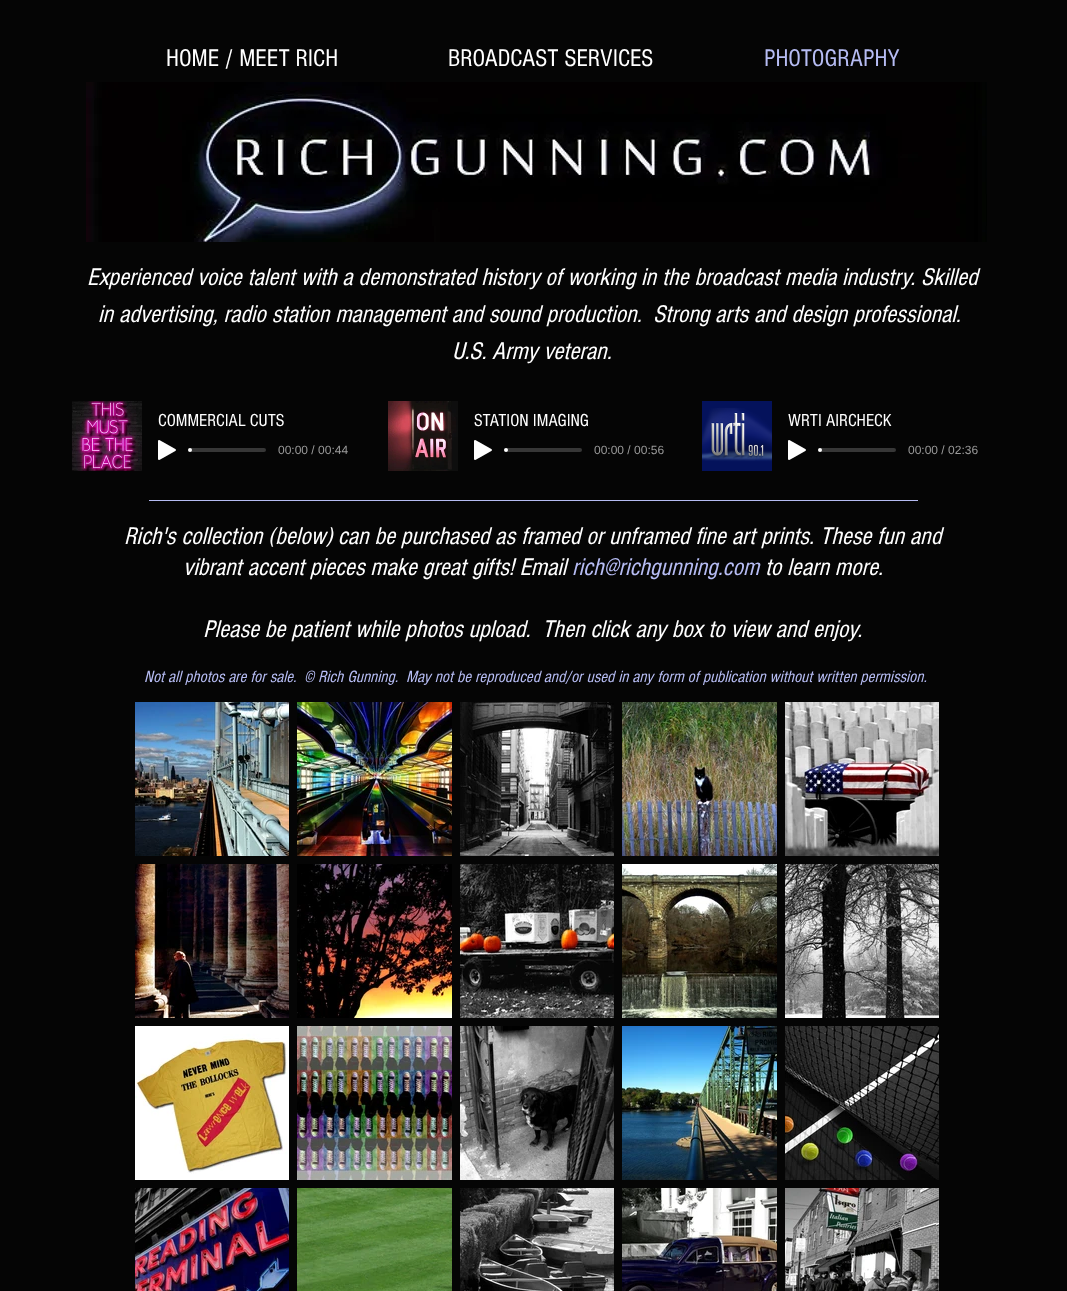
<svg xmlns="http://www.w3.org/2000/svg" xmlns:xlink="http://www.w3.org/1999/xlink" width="1067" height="1291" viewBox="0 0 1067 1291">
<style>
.cls-1{font:25px 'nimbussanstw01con';fill:#ffffff}
.cls-2{font:25px 'nimbussanstw01con';fill:#b6bcf3}
.cls-3{font:italic 25px 'nimbussanstw01con';fill:#ffffff}
.cls-4{font:18px 'nimbussanstw01con';fill:#ffffff}
.cls-5{font:12px Liberation Sans;fill:#9b9b9b}
.cls-6{font:italic 25px 'nimbussanstw01con';fill:#b6bcf3}
.cls-7{font:italic 17px 'nimbussanstw01con';fill:#b6bcf3}
</style>
<rect width="100%" height="100%" fill="#050505"/>
<image xlink:href="image0.png" x="86" y="82" width="901" height="160"/>
<image xlink:href="image1.png" x="72" y="401" width="70" height="70"/>
<image xlink:href="image2.png" x="158" y="440" width="18" height="20"/>
<rect fill="#373737" x="190" y="448" width="76" height="4" rx="2"/>
<circle fill="#ffffff" cx="190" cy="450" r="2"/>
<image xlink:href="image3.png" x="388" y="401" width="70" height="70"/>
<image xlink:href="image2.png" x="474" y="440" width="18" height="20"/>
<rect fill="#373737" x="506" y="448" width="76" height="4" rx="2"/>
<circle fill="#ffffff" cx="506" cy="450" r="2"/>
<image xlink:href="image4.png" x="702" y="401" width="70" height="70"/>
<image xlink:href="image2.png" x="788" y="440" width="18" height="20"/>
<rect fill="#373737" x="820" y="448" width="76" height="4" rx="2"/>
<circle fill="#ffffff" cx="820" cy="450" r="2"/>
<rect fill="#b6bcf3" x="149" y="500" width="769" height="1"/>
<image xlink:href="image5.png" x="135" y="702" width="154" height="154"/>
<image xlink:href="image6.png" x="297" y="702" width="155" height="154"/>
<image xlink:href="image7.png" x="460" y="702" width="154" height="154"/>
<image xlink:href="image8.png" x="622" y="702" width="155" height="154"/>
<image xlink:href="image9.png" x="785" y="702" width="154" height="154"/>
<image xlink:href="image10.png" x="135" y="864" width="154" height="154"/>
<image xlink:href="image11.png" x="297" y="864" width="155" height="154"/>
<image xlink:href="image12.png" x="460" y="864" width="154" height="154"/>
<image xlink:href="image13.png" x="622" y="864" width="155" height="154"/>
<image xlink:href="image14.png" x="785" y="864" width="154" height="154"/>
<image xlink:href="image15.png" x="135" y="1026" width="154" height="154"/>
<image xlink:href="image16.png" x="297" y="1026" width="155" height="154"/>
<image xlink:href="image17.png" x="460" y="1026" width="154" height="154"/>
<image xlink:href="image18.png" x="622" y="1026" width="155" height="154"/>
<image xlink:href="image19.png" x="785" y="1026" width="154" height="154"/>
<image xlink:href="image20.png" x="135" y="1188" width="154" height="103"/>
<image xlink:href="image21.png" x="297" y="1188" width="155" height="103"/>
<image xlink:href="image22.png" x="460" y="1188" width="154" height="103"/>
<image xlink:href="image23.png" x="622" y="1188" width="155" height="103"/>
<image xlink:href="image24.png" x="785" y="1188" width="154" height="103"/>
<text class="cls-1" x="166" y="66">HOME / MEET RICH</text>
<text class="cls-1" x="448" y="66">BROADCAST SERVICES</text>
<text class="cls-2" x="764" y="66">PHOTOGRAPHY</text>
<text class="cls-3" x="87" y="285">Experienced voice talent with a demonstrated history of working in the broadcast media industry. Skilled</text>
<text class="cls-3" xml:space="preserve" x="98" y="322">in advertising, radio station management and sound production.  Strong arts and design professional.</text>
<text class="cls-3" x="452" y="359">U.S. Army veteran.</text>
<text class="cls-4" x="158" y="426">COMMERCIAL CUTS</text>
<text class="cls-5" x="278" y="454">00:00 / 00:44</text>
<text class="cls-4" x="474" y="426">STATION IMAGING</text>
<text class="cls-5" x="594" y="454">00:00 / 00:56</text>
<text class="cls-4" x="788" y="426">WRTI AIRCHECK</text>
<text class="cls-5" x="908" y="454">00:00 / 02:36</text>
<text class="cls-3" x="124" y="544">Rich's collection (below) can be purchased as framed or unframed fine art prints. These fun and</text>
<text class="cls-3" x="183" y="575">vibrant accent pieces make great gifts! Email</text>
<text class="cls-6" x="572" y="575">rich@richgunning.com</text>
<text class="cls-3" x="765" y="575">to learn more.</text>
<text class="cls-3" xml:space="preserve" x="203" y="637">Please be patient while photos upload.  Then click any box to view and enjoy.</text>
<text class="cls-7" xml:space="preserve" x="144" y="682">Not all photos are for sale.  © Rich Gunning.  May not be reproduced and/or used in any form of publication without written permission.</text>
</svg>
